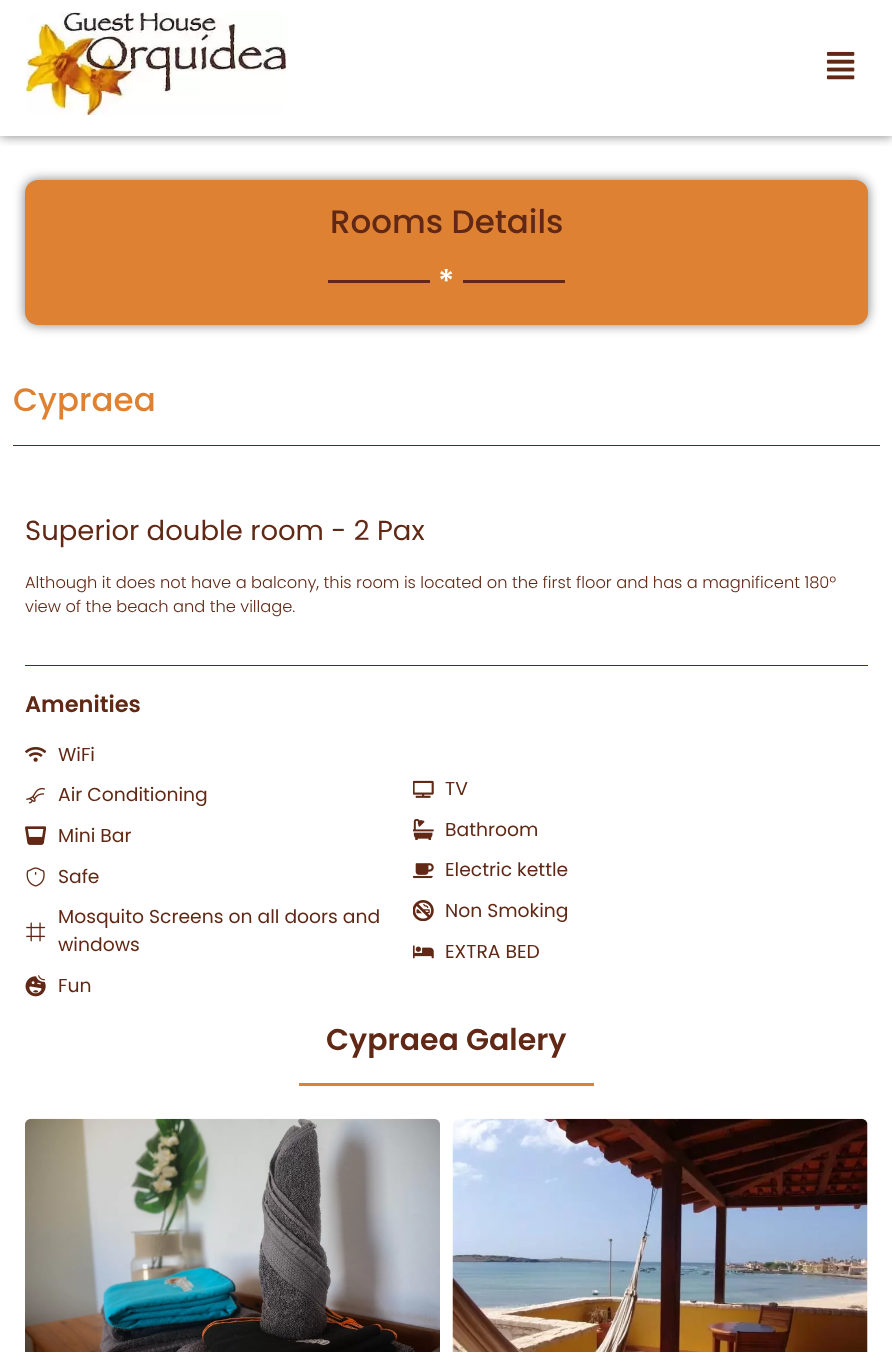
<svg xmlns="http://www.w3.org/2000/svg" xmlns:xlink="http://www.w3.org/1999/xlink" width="892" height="1352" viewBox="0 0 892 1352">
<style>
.cls-1{font:500 32.5px Poppins;fill:#602815}
.cls-2{font:500 32.5px Poppins;fill:#ffffff}
.cls-3{font:500 32.5px Poppins;fill:#de8133}
.cls-4{font:27.5px Poppins;fill:#602815}
.cls-5{font:300 16.25px Poppins;fill:#602815}
.cls-6{font:600 22.5px Poppins;fill:#602815}
.cls-7{font:18.75px Poppins;fill:#602815}
.cls-8{font:600 30px Poppins;fill:#602815}
</style>
<defs>
<clipPath id="clip1"><rect x="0" y="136" width="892" height="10"/></clipPath>
</defs>
<rect width="100%" height="100%" fill="#ffffff"/>
<g clip-path="url(#clip1)">
<rect fill="#000000" fill-opacity="0.5" filter="blur(6px)" x="0" y="0" width="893" height="136"/>
</g>
<image xlink:href="image0.png" x="26" y="12" width="261" height="103"/>
<image xlink:href="image1.png" x="826" y="51" width="29" height="29"/>
<rect fill="#000000" fill-opacity="0.5" filter="blur(6px)" x="25" y="180" width="843" height="145" rx="13"/>
<rect fill="#de8133" x="25" y="180" width="843" height="145" rx="13"/>
<rect fill="#602815" x="328" y="280" width="102" height="3"/>
<rect fill="#602815" x="463" y="280" width="102" height="3"/>
<rect fill="#602815" x="13" y="445" width="867" height="1"/>
<rect fill="#602815" x="25" y="665" width="843" height="1"/>
<image xlink:href="image2.png" x="25" y="746" width="21" height="16"/>
<image xlink:href="image3.png" x="26" y="788" width="20" height="16"/>
<image xlink:href="image4.png" x="25" y="826" width="21" height="19"/>
<image xlink:href="image5.png" x="26" y="867" width="19" height="20"/>
<image xlink:href="image6.png" x="26" y="922" width="20" height="20"/>
<image xlink:href="image7.png" x="25" y="975" width="21" height="22"/>
<image xlink:href="image8.png" x="413" y="780" width="21" height="18"/>
<image xlink:href="image9.png" x="413" y="819" width="21" height="21"/>
<image xlink:href="image10.png" x="413" y="863" width="21" height="16"/>
<image xlink:href="image11.png" x="413" y="900" width="21" height="21"/>
<image xlink:href="image12.png" x="413" y="945" width="21" height="14"/>
<rect fill="#de8133" x="299" y="1083" width="295" height="3"/>
<image xlink:href="image13.png" x="25" y="1118" width="415" height="234"/>
<image xlink:href="image14.png" x="452" y="1118" width="416" height="234"/>
<text class="cls-1" x="330" y="233">Rooms Details</text>
<text class="cls-2" x="438" y="293">*</text>
<text class="cls-3" x="13" y="411">Cypraea</text>
<text class="cls-4" x="25" y="540">Superior double room - 2 Pax</text>
<text class="cls-5"><tspan x="25" y="588">Although it does not have a balcony, this room is located on the first floor and has a magnificent 180º</tspan><tspan x="25" y="612">view of the beach and the village.</tspan></text>
<text class="cls-6" x="25" y="712">Amenities</text>
<text class="cls-7" x="58" y="761">WiFi</text>
<text class="cls-7" x="58" y="801">Air Conditioning</text>
<text class="cls-7" x="58" y="842">Mini Bar</text>
<text class="cls-7" x="58" y="883">Safe</text>
<text class="cls-7"><tspan x="58" y="923">Mosquito Screens on all doors and</tspan><tspan x="58" y="951">windows</tspan></text>
<text class="cls-7" x="58" y="992">Fun</text>
<text class="cls-7" x="445" y="795">TV</text>
<text class="cls-7" x="445" y="836">Bathroom</text>
<text class="cls-7" x="445" y="876">Electric kettle</text>
<text class="cls-7" x="445" y="917">Non Smoking</text>
<text class="cls-7" x="445" y="958">EXTRA BED</text>
<text class="cls-8" x="326" y="1050">Cypraea Galery</text>
</svg>
